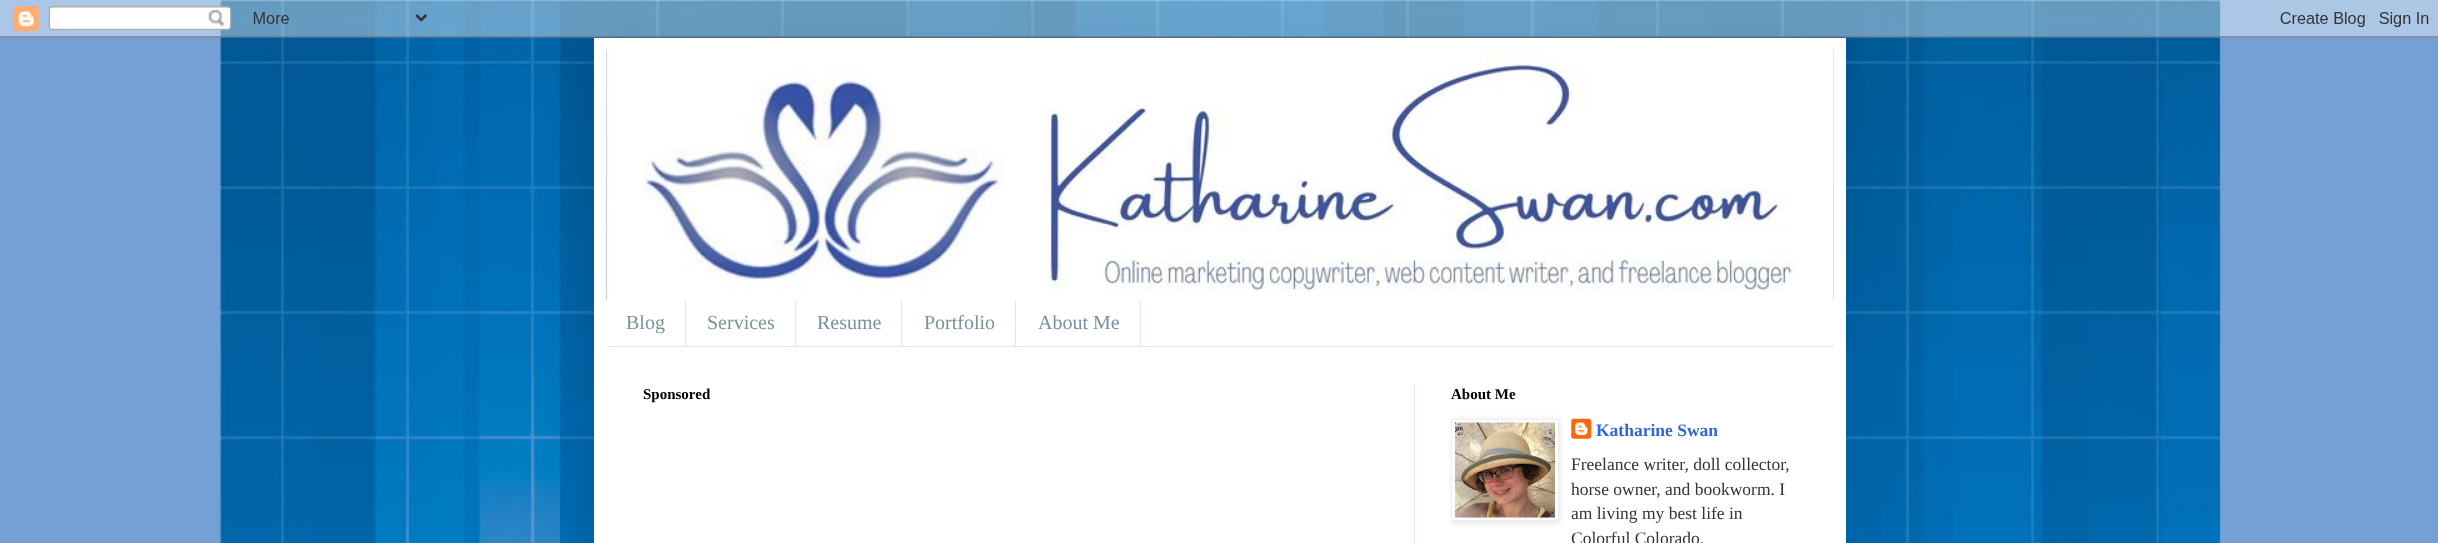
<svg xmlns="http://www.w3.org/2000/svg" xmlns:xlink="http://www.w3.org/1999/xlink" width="2438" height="543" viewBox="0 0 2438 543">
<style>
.cls-1{font:20px Liberation Serif;fill:#79929b}
.cls-2{font:bold 15px Liberation Serif;fill:#000000}
.cls-3{font:bold 17.5px Liberation Serif;fill:#3367d6}
.cls-4{font:17.5px Liberation Serif;fill:#343434}
</style>
<rect width="100%" height="100%" fill="#75a0d5"/>
<image xlink:href="image0.png" x="219" y="0" width="2002" height="543"/>
<rect fill="#000000" fill-opacity="0.15" filter="blur(25px)" x="594" y="38" width="1252" height="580"/>
<image xlink:href="image1.png" x="0" y="0" width="2438" height="38"/>
<rect fill="#ffffff" x="594" y="38" width="1252" height="505"/>
<rect fill="#6895cd" x="606" y="50" width="1228" height="250"/>
<image xlink:href="image2.png" x="606" y="50" width="1228" height="159"/>
<image xlink:href="image3.png" x="606" y="50" width="1228" height="250"/>
<rect fill="#eee5dd" x="606" y="346" width="1228" height="1"/>
<rect fill="#eee5dd" x="685" y="300" width="1" height="46"/>
<rect fill="#eee5dd" x="795" y="300" width="1" height="46"/>
<rect fill="#eee5dd" x="901" y="300" width="1" height="46"/>
<rect fill="#eee5dd" x="1015" y="300" width="1" height="46"/>
<rect fill="#eee5dd" x="1140" y="300" width="1" height="46"/>
<rect fill="#deeaee" x="1414" y="385" width="1" height="158"/>
<rect fill="#000000" fill-opacity="0.1" filter="blur(3px)" x="1453" y="420" width="107" height="103"/>
<rect fill="#ffffff" stroke="#efefef" x="1451.5" y="419.5" width="107" height="101"/>
<image xlink:href="image4.png" x="1455" y="422" width="100" height="96"/>
<image xlink:href="image5.png" x="1571" y="418" width="21" height="21"/>
<text class="cls-1" x="626" y="329">Blog</text>
<text class="cls-1" x="707" y="329">Services</text>
<text class="cls-1" x="817" y="329">Resume</text>
<text class="cls-1" x="924" y="329">Portfolio</text>
<text class="cls-1" x="1038" y="329">About Me</text>
<text class="cls-2" x="643" y="399">Sponsored</text>
<text class="cls-2" x="1451" y="399">About Me</text>
<text class="cls-3" x="1596" y="436">Katharine Swan</text>
<text class="cls-4"><tspan x="1571" y="470">Freelance writer, doll collector,</tspan><tspan x="1571" y="495">horse owner, and bookworm. I</tspan><tspan x="1571" y="519">am living my best life in</tspan><tspan x="1571" y="544">Colorful Colorado.</tspan></text>
</svg>
